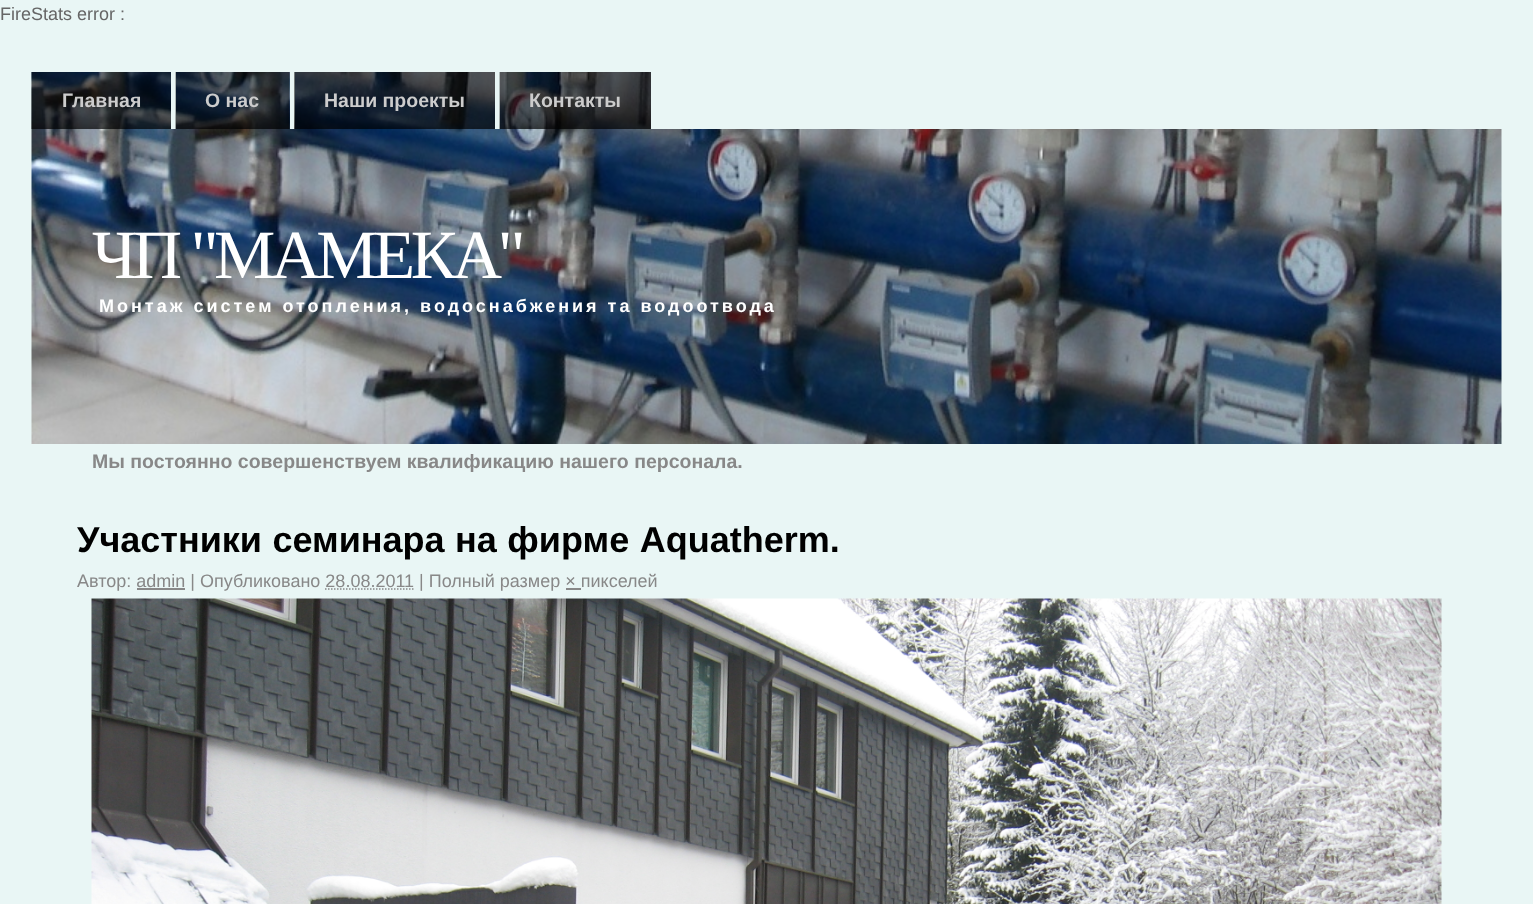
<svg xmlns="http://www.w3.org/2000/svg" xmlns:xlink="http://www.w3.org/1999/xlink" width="1533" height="904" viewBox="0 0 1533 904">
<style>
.cls-1{font:18px Liberation Sans;fill:#666666}
.cls-2{font:bold 19.5px Liberation Sans;fill:#cccccc}
.cls-3{font:69px Liberation Serif;letter-spacing:-4.5px;fill:#ffffff}
.cls-4{font:bold 18px Liberation Sans;letter-spacing:3px;fill:#ffffff}
.cls-5{font:bold 19.5px Liberation Sans;fill:#888888}
.cls-6{font:bold 36px Liberation Sans;fill:#000000}
.cls-7{font:18px Liberation Sans;fill:#888888}
</style>
<rect width="100%" height="100%" fill="#e9f6f5"/>
<image xlink:href="image0.png" x="31" y="72" width="620" height="57"/>
<rect fill="#e9f6f5" x="171" y="72" width="5" height="57"/>
<image xlink:href="image1.png" x="31" y="72" width="140" height="57"/>
<rect fill="#e9f6f5" x="290" y="72" width="5" height="57"/>
<image xlink:href="image2.png" x="175" y="72" width="115" height="57"/>
<rect fill="#e9f6f5" x="495" y="72" width="5" height="57"/>
<image xlink:href="image3.png" x="294" y="72" width="201" height="57"/>
<image xlink:href="image4.png" x="499" y="72" width="152" height="57"/>
<image xlink:href="image5.png" x="31" y="129" width="1471" height="315"/>
<rect fill="#888888" x="137" y="588" width="48" height="2"/>
<path fill="none" stroke="#888888" stroke-width="1.5" stroke-dasharray="1.5 1.5" d="M325 589H413.5"/>
<rect fill="#888888" x="566" y="588" width="15" height="2"/>
<image xlink:href="image6.png" x="91" y="598" width="1351" height="306"/>
<text class="cls-1" x="0" y="20">FireStats error :</text>
<text class="cls-2" x="62" y="107">Главная</text>
<text class="cls-2" x="205" y="107">О нас</text>
<text class="cls-2" x="324" y="107">Наши проекты</text>
<text class="cls-2" x="529" y="107">Контакты</text>
<text class="cls-3" x="92" y="278">ЧП "МАМЕКА"</text>
<text class="cls-4" x="99" y="312">Монтаж систем отопления, водоснабжения та водоотвода</text>
<text class="cls-5" x="92" y="468">Мы постоянно совершенствуем квалификацию нашего персонала.</text>
<text class="cls-6" x="77" y="552" word-spacing="0.5">Участники семинара на фирме Aquatherm.</text>
<text class="cls-7" x="77" y="587">Автор: admin | Опубликовано 28.08.2011 | Полный размер × пикселей</text>
</svg>
